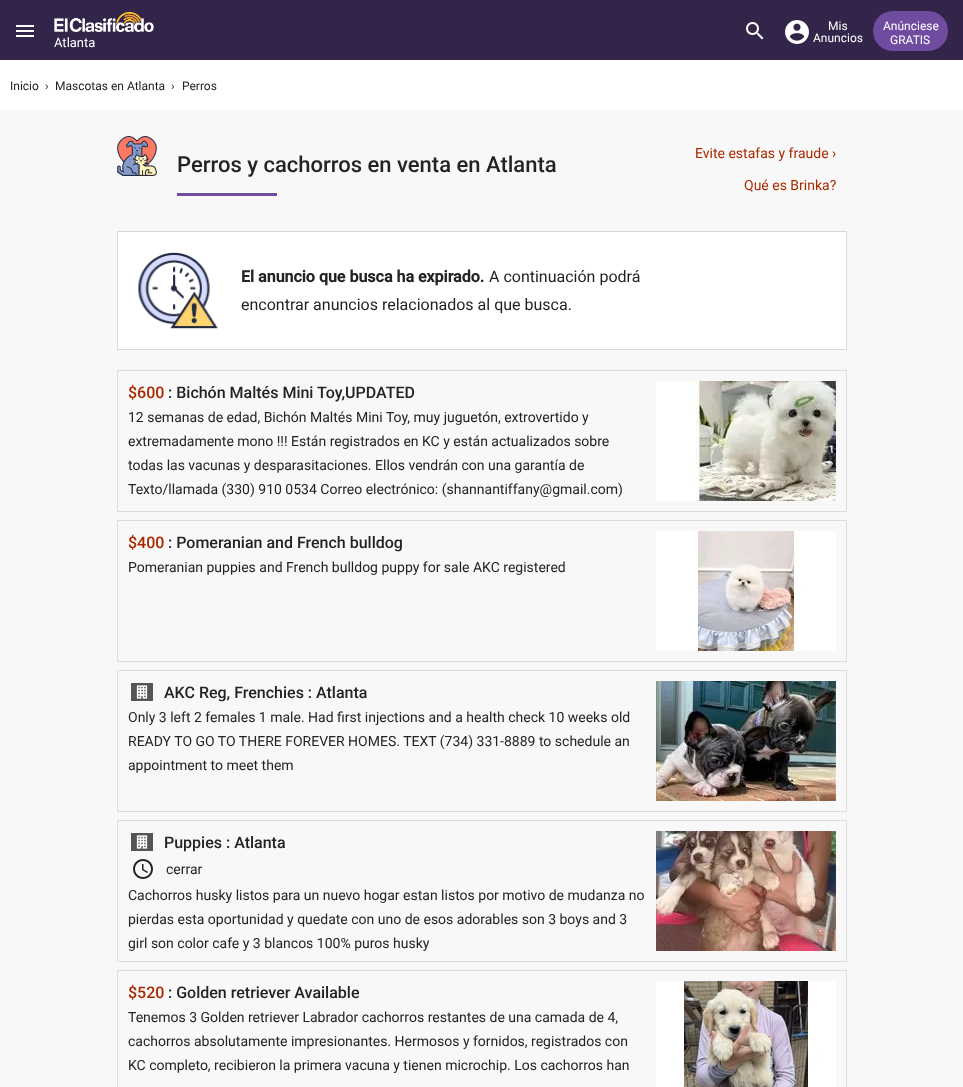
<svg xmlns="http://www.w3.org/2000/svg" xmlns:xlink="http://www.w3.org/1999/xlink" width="963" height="1087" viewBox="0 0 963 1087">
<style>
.cls-1{font:13px Roboto;fill:#ffffff}
.cls-2{font:12px Roboto;fill:#ffffff}
.cls-3{font:12px Roboto;fill:#232323}
.cls-4{font:500 22px Roboto;fill:#232323}
.cls-5{font:14px Roboto;fill:#a82a00}
.cls-6{font:bold 16px Roboto;fill:#232323}
.cls-7{font:16px Roboto;fill:#232323}
.cls-8{font:500 16px Roboto;fill:#a82a00}
.cls-9{font:500 16px Roboto;fill:#232323}
.cls-10{font:14px Roboto;fill:#232323}
</style>
<rect width="100%" height="100%" fill="#f8f8f8"/>
<rect fill="#322549" x="0" y="0" width="963" height="60"/>
<image xlink:href="image0.png" x="16" y="25" width="18" height="12"/>
<image xlink:href="image1.png" x="54" y="12" width="100" height="20"/>
<image xlink:href="image2.png" x="746" y="22" width="18" height="18"/>
<image xlink:href="image3.png" x="785" y="20" width="24" height="24"/>
<rect fill="#704ca1" x="873" y="11" width="75" height="40" rx="20"/>
<rect fill="#ffffff" x="0" y="60" width="963" height="50"/>
<image xlink:href="image4.png" x="117" y="136" width="40" height="40"/>
<rect fill="#704ca1" x="177" y="193" width="100" height="3"/>
<rect fill="#ffffff" stroke="#d8d8d8" x="117.5" y="231.5" width="729" height="118"/>
<image xlink:href="image5.png" x="138" y="252" width="80" height="77"/>
<rect fill="none" stroke="#dddddd" x="117.5" y="370.5" width="729" height="141"/>
<image xlink:href="image6.png" x="656" y="381" width="180" height="120"/>
<rect fill="none" stroke="#dddddd" x="117.5" y="520.5" width="729" height="141"/>
<image xlink:href="image7.png" x="656" y="531" width="180" height="120"/>
<rect fill="none" stroke="#dddddd" x="117.5" y="670.5" width="729" height="141"/>
<image xlink:href="image8.png" x="131" y="683" width="22" height="18"/>
<image xlink:href="image9.png" x="656" y="681" width="180" height="120"/>
<rect fill="none" stroke="#dddddd" x="117.5" y="820.5" width="729" height="141"/>
<image xlink:href="image8.png" x="131" y="833" width="22" height="18"/>
<image xlink:href="image10.png" x="133" y="859" width="20" height="20"/>
<image xlink:href="image11.png" x="656" y="831" width="180" height="120"/>
<rect fill="none" stroke="#dddddd" x="117.5" y="970.5" width="729" height="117"/>
<image xlink:href="image12.png" x="656" y="981" width="180" height="106"/>
<text class="cls-1" x="54" y="47">Atlanta</text>
<text class="cls-2" x="828" y="30">Mis</text>
<text class="cls-2" x="813" y="42">Anuncios</text>
<text class="cls-2" x="883" y="30">Anúnciese</text>
<text class="cls-2" x="890" y="44">GRATIS</text>
<text class="cls-3" x="10" y="90">Inicio</text>
<text class="cls-3" x="45" y="90">›</text>
<text class="cls-3" x="55" y="90">Mascotas en Atlanta</text>
<text class="cls-3" x="171" y="90">›</text>
<text class="cls-3" x="182" y="90">Perros</text>
<text class="cls-4" x="177" y="172">Perros y cachorros en venta en Atlanta</text>
<text class="cls-5" x="695" y="158">Evite estafas y fraude ›</text>
<text class="cls-5" x="744" y="190">Qué es Brinka?</text>
<text class="cls-6" x="241" y="282">El anuncio que busca ha expirado.</text>
<text class="cls-7" x="489" y="282">A continuación podrá</text>
<text class="cls-7" x="241" y="310">encontrar anuncios relacionados al que busca.</text>
<text class="cls-8" x="128" y="398">$600</text>
<text class="cls-9" x="168" y="398">: Bichón Maltés Mini Toy,UPDATED</text>
<text class="cls-10"><tspan x="128" y="422">12 semanas de edad, Bichón Maltés Mini Toy, muy juguetón, extrovertido y</tspan><tspan x="128" y="446">extremadamente mono !!! Están registrados en KC y están actualizados sobre</tspan><tspan x="128" y="470">todas las vacunas y desparasitaciones. Ellos vendrán con una garantía de</tspan><tspan x="128" y="494">Texto/llamada (330) 910 0534 Correo electrónico: (shannantiffany@gmail.com)</tspan></text>
<text class="cls-8" x="128" y="548">$400</text>
<text class="cls-9" x="168" y="548">: Pomeranian and French bulldog</text>
<text class="cls-10" x="128" y="572">Pomeranian puppies and French bulldog puppy for sale AKC registered</text>
<text class="cls-9" x="164" y="698">AKC Reg, Frenchies : Atlanta</text>
<text class="cls-10"><tspan x="128" y="722">Only 3 left 2 females 1 male. Had first injections and a health check 10 weeks old</tspan><tspan x="128" y="746">READY TO GO TO THERE FOREVER HOMES. TEXT (734) 331-8889 to schedule an</tspan><tspan x="128" y="770">appointment to meet them</tspan></text>
<text class="cls-9" x="164" y="848">Puppies : Atlanta</text>
<text class="cls-10" x="166" y="874">cerrar</text>
<text class="cls-10"><tspan x="128" y="900">Cachorros husky listos para un nuevo hogar estan listos por motivo de mudanza no</tspan><tspan x="128" y="924">pierdas esta oportunidad y quedate con uno de esos adorables son 3 boys and 3</tspan><tspan x="128" y="948">girl son color cafe y 3 blancos 100% puros husky</tspan></text>
<text class="cls-8" x="128" y="998">$520</text>
<text class="cls-9" x="168" y="998">: Golden retriever Available</text>
<text class="cls-10"><tspan x="128" y="1022">Tenemos 3 Golden retriever Labrador cachorros restantes de una camada de 4,</tspan><tspan x="128" y="1046">cachorros absolutamente impresionantes. Hermosos y fornidos, registrados con</tspan><tspan x="128" y="1070">KC completo, recibieron la primera vacuna y tienen microchip. Los cachorros han</tspan></text>
</svg>
